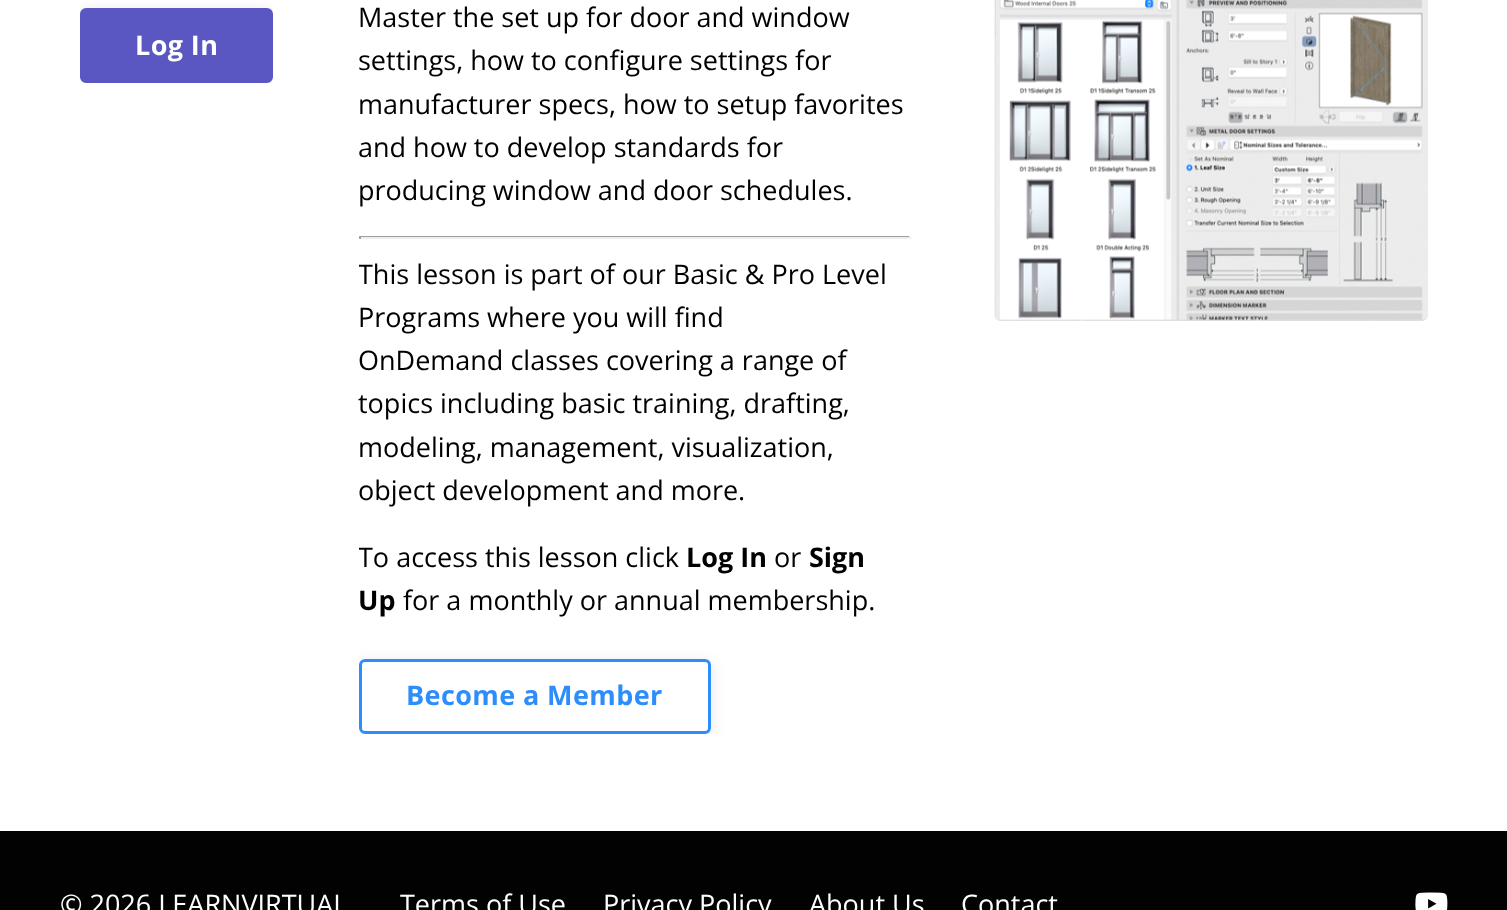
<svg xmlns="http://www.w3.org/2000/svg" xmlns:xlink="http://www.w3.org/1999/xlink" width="1507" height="910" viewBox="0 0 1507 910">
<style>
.cls-1{font:bold 27px Open Sans;letter-spacing:0.4px;fill:#ffffff}
.cls-2{font:27px Open Sans;fill:#000000}
.cls-3{font:bold 27px Open Sans;fill:#000000}
.cls-4{font:bold 27px Open Sans;letter-spacing:0.4px;fill:#2d8efb}
.cls-5{font:27px Open Sans;fill:#ffffff}
</style>
<defs>
<clipPath id="clip1"><rect x="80" y="-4" width="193" height="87" rx="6"/></clipPath>
<clipPath id="clip2"><rect x="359" y="-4" width="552" height="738" rx="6"/></clipPath>
<clipPath id="clip3"><path d="M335 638H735V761H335ZM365 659H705C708.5 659 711 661.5 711 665V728C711 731.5 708.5 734 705 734H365C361.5 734 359 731.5 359 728V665C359 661.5 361.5 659 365 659Z" clip-rule="evenodd"/></clipPath>
<clipPath id="clip4"><rect x="359" y="-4" width="552" height="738" rx="6"/></clipPath>
</defs>
<rect width="100%" height="100%" fill="#ffffff"/>
<g clip-path="url(#clip1)">
<rect fill="#000000" fill-opacity="0.1" filter="blur(7.5px)" x="80" y="11" width="193" height="75" rx="6"/>
</g>
<rect fill="#5a57c3" stroke="#5a57c3" stroke-width="3" x="81.5" y="9.5" width="190" height="72" rx="4.5"/>
<rect fill="#9f9f9f" x="359" y="236" width="552" height="1"/>
<rect fill="#eeeeee" x="909" y="236" width="2" height="3"/>
<rect fill="#eeeeee" x="359" y="237" width="552" height="2"/>
<rect fill="#9f9f9f" x="359" y="236" width="2" height="3"/>
<g clip-path="url(#clip2)">
<g clip-path="url(#clip3)">
<rect fill="#000000" fill-opacity="0.1" filter="blur(7.5px)" x="359" y="662" width="352" height="75" rx="6"/>
</g>
</g>
<rect fill="none" stroke="#2d8efb" stroke-width="3" x="360.5" y="660.5" width="349" height="72" rx="4.5"/>
<image xlink:href="image0.png" x="994" y="0" width="434" height="321"/>
<rect fill="#020202" x="0" y="831" width="1507" height="79"/>
<image xlink:href="image1.png" x="1415" y="892" width="33" height="18"/>
<text class="cls-1" x="135" y="55">Log In</text>
<text class="cls-2"><tspan x="358" y="27">Master the set up for door and window</tspan><tspan x="358" y="70">settings, how to configure settings for</tspan><tspan x="358" y="114">manufacturer specs, how to setup favorites</tspan><tspan x="358" y="157">and how to develop standards for</tspan><tspan x="358" y="200">producing window and door schedules.</tspan></text>
<g clip-path="url(#clip4)">
<text class="cls-2" x="358" y="284">This lesson is part of our Basic &amp; Pro Level</text>
</g>
<text class="cls-2"><tspan x="358" y="327">Programs where you will find</tspan><tspan x="358" y="370">OnDemand classes covering a range of</tspan><tspan x="358" y="413">topics including basic training, drafting,</tspan><tspan x="358" y="457">modeling, management, visualization,</tspan><tspan x="358" y="500">object development and more.</tspan></text>
<g clip-path="url(#clip4)">
<text class="cls-2" x="358" y="567">To access this lesson click</text>
</g>
<text class="cls-3" x="686" y="567">Log In</text>
<text class="cls-2" x="774" y="567">or</text>
<text class="cls-3" x="809" y="567">Sign</text>
<text class="cls-3" x="358" y="610">Up</text>
<text class="cls-2" x="403" y="610">for a monthly or annual membership.</text>
<text class="cls-4" x="406" y="705">Become a Member</text>
<text class="cls-5" x="60" y="914">© 2026 LEARNVIRTUAL</text>
<text class="cls-5" x="400" y="914">Terms of Use</text>
<text class="cls-5" x="603" y="914">Privacy Policy</text>
<text class="cls-5" x="809" y="914">About Us</text>
<text class="cls-5" x="961" y="914">Contact</text>
</svg>
